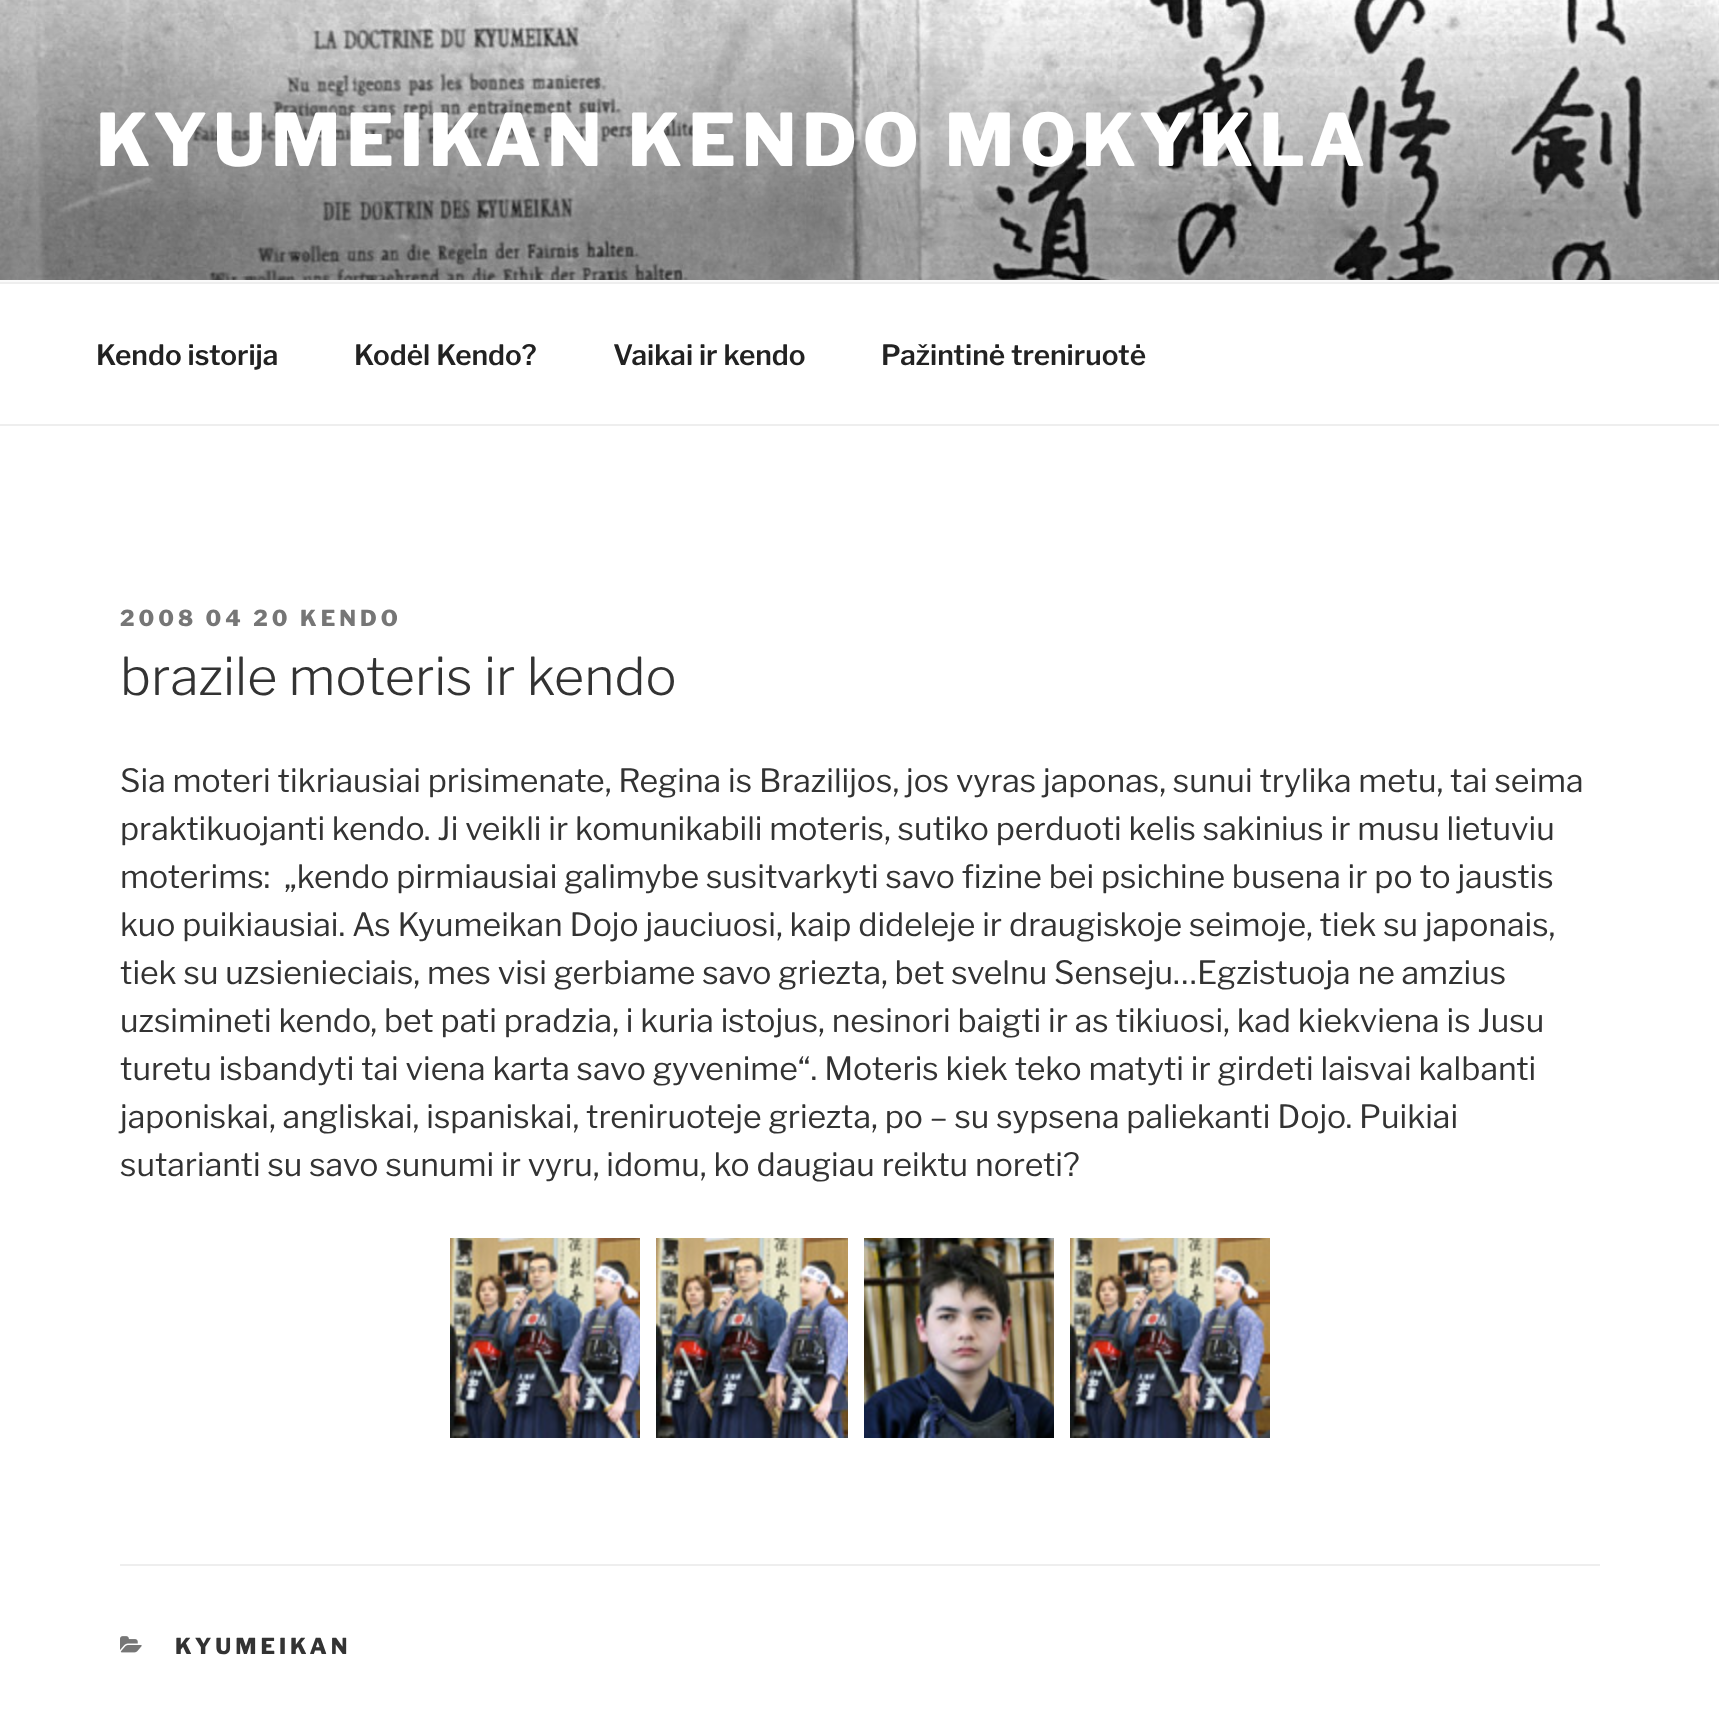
<svg xmlns="http://www.w3.org/2000/svg" xmlns:xlink="http://www.w3.org/1999/xlink" width="1719" height="1725" viewBox="0 0 1719 1725">
<style>
.cls-1{font:800 72px Libre Franklin;letter-spacing:5.75px;fill:#ffffff}
.cls-2{font:600 28px Libre Franklin;fill:#222222}
.cls-3{font:800 22px Libre Franklin;letter-spacing:4px;fill:#767676}
.cls-4{font:300 52px Libre Franklin;fill:#333333}
.cls-5{font:32px Libre Franklin;fill:#333333}
.cls-6{font:800 22px Libre Franklin;letter-spacing:4px;fill:#333333}
</style>
<rect width="100%" height="100%" fill="#ffffff"/>
<rect fill="#fafafa" x="0" y="280" width="1719" height="2"/>
<image xlink:href="image0.png" x="0" y="0" width="1719" height="280"/>
<rect fill="#eeeeee" x="0" y="282" width="1719" height="2"/>
<rect fill="#eeeeee" x="0" y="424" width="1719" height="2"/>
<image xlink:href="image1.png" x="450" y="1238" width="190" height="200"/>
<image xlink:href="image2.png" x="656" y="1238" width="192" height="200"/>
<image xlink:href="image3.png" x="864" y="1238" width="190" height="200"/>
<image xlink:href="image4.png" x="1070" y="1238" width="200" height="200"/>
<rect fill="#eeeeee" x="120" y="1564" width="1480" height="2"/>
<image xlink:href="image5.png" x="120" y="1636" width="22" height="17"/>
<text class="cls-1" x="96" y="166">KYUMEIKAN KENDO MOKYKLA</text>
<text class="cls-2" x="96" y="365">Kendo istorija</text>
<text class="cls-2" x="354" y="365">Kodėl Kendo?</text>
<text class="cls-2" x="613" y="365">Vaikai ir kendo</text>
<text class="cls-2" x="881" y="365">Pažintinė treniruotė</text>
<text class="cls-3" x="120" y="626">2008 04 20 KENDO</text>
<text class="cls-4" x="120" y="695">brazile moteris ir kendo</text>
<text class="cls-5" xml:space="preserve"><tspan x="120" y="792">Sia moteri tikriausiai prisimenate, Regina is Brazilijos, jos vyras japonas, sunui trylika metu, tai seima</tspan><tspan x="120" y="840">praktikuojanti kendo. Ji veikli ir komunikabili moteris, sutiko perduoti kelis sakinius ir musu lietuviu</tspan><tspan x="120" y="888">moterims:  „kendo pirmiausiai galimybe susitvarkyti savo fizine bei psichine busena ir po to jaustis</tspan><tspan x="120" y="936">kuo puikiausiai. As Kyumeikan Dojo jauciuosi, kaip dideleje ir draugiskoje seimoje, tiek su japonais,</tspan><tspan x="120" y="984">tiek su uzsienieciais, mes visi gerbiame savo griezta, bet svelnu Senseju…Egzistuoja ne amzius</tspan><tspan x="120" y="1032">uzsimineti kendo, bet pati pradzia, i kuria istojus, nesinori baigti ir as tikiuosi, kad kiekviena is Jusu</tspan><tspan x="120" y="1080">turetu isbandyti tai viena karta savo gyvenime“. Moteris kiek teko matyti ir girdeti laisvai kalbanti</tspan><tspan x="120" y="1128">japoniskai, angliskai, ispaniskai, treniruoteje griezta, po – su sypsena paliekanti Dojo. Puikiai</tspan><tspan x="120" y="1176">sutarianti su savo sunumi ir vyru, idomu, ko daugiau reiktu noreti?</tspan></text>
<text class="cls-6" x="175" y="1654">KYUMEIKAN</text>
</svg>
